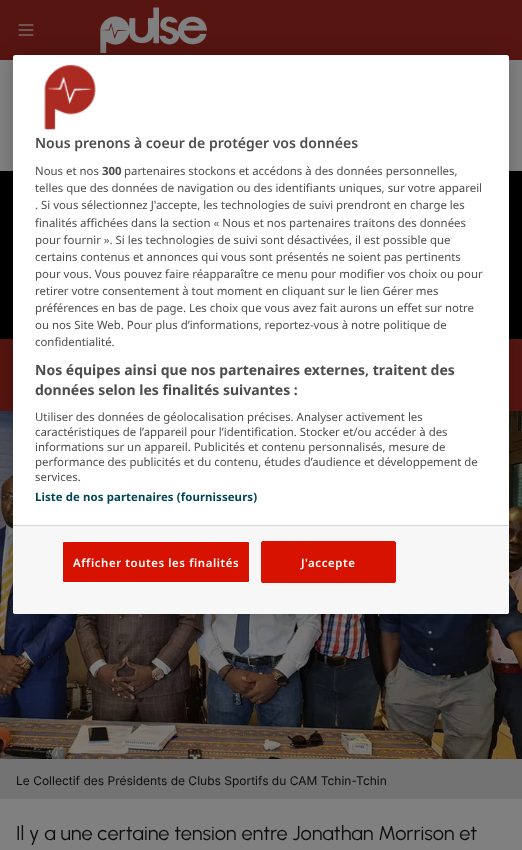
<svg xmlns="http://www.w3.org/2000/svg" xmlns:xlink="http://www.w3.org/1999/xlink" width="522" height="850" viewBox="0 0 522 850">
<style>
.cls-1{font:600 14px Noto Sans;fill:#4d4d4d}
.cls-2{font:11.4px Noto Sans;fill:#4d4d4d}
.cls-3{font:bold 11.4px Noto Sans;fill:#4d4d4d}
.cls-4{font:bold 14px Noto Sans;fill:#4d4d4d}
.cls-5{font:bold 11.4px Noto Sans;letter-spacing:0.1px;fill:#004658}
.cls-6{font:600 11.4px Noto Sans;letter-spacing:0.6px;fill:#ffffff}
.cls-7{font:12px Inter;fill:#0d0d0d}
.cls-8{font:20px Urbanist;fill:#0d0d0d}
</style>
<rect width="100%" height="100%" fill="#808080"/>
<rect fill="#561511" x="0" y="0" width="522" height="60"/>
<image xlink:href="image1.png" x="18" y="24" width="16" height="12"/>
<image xlink:href="image2.png" x="100" y="7" width="107" height="46"/>
<rect fill="#000000" x="0" y="171" width="522" height="168"/>
<rect fill="#561511" x="0" y="339" width="522" height="72"/>
<image xlink:href="image3.png" x="0" y="411" width="522" height="348"/>
<rect fill="#000000" fill-opacity="0.2" filter="blur(9px)" x="13" y="55" width="496" height="559" rx="2.5"/>
<rect fill="#ffffff" x="13" y="55" width="496" height="559" rx="2.5"/>
<image xlink:href="image0.png" x="44" y="64" width="52" height="66"/>
<path fill="#f7f7f7" d="M13 525H509V611.5C509 613 508 614 506.5 614H15.5C14 614 13 613 13 611.5Z"/>
<rect fill="#d8d8d8" x="13" y="525" width="496" height="1"/>
<rect fill="#d81200" stroke="#ffffff" x="62.5" y="541.5" width="187" height="41" rx="1.5"/>
<rect fill="#d81200" stroke="#d81200" x="261.5" y="541.5" width="134" height="41" rx="1.5"/>
<rect fill="#737373" x="0" y="759" width="522" height="40"/>
<text class="cls-1" x="35" y="148">Nous prenons à coeur de protéger vos données</text>
<text class="cls-2" x="35" y="175">Nous et nos</text>
<text class="cls-3" x="102" y="175">300</text>
<text class="cls-2" x="124" y="175">partenaires stockons et accédons à des données personnelles,</text>
<text class="cls-2"><tspan x="35" y="192">telles que des données de navigation ou des identifiants uniques, sur votre appareil</tspan><tspan x="35" y="209">. Si vous sélectionnez J'accepte, les technologies de suivi prendront en charge les</tspan><tspan x="35" y="227">finalités affichées dans la section « Nous et nos partenaires traitons des données</tspan><tspan x="35" y="244">pour fournir ». Si les technologies de suivi sont désactivées, il est possible que</tspan><tspan x="35" y="261">certains contenus et annonces qui vous sont présentés ne soient pas pertinents</tspan><tspan x="35" y="278">pour vous. Vous pouvez faire réapparaître ce menu pour modifier vos choix ou pour</tspan><tspan x="35" y="295">retirer votre consentement à tout moment en cliquant sur le lien Gérer mes</tspan><tspan x="35" y="312">préférences en bas de page. Les choix que vous avez fait aurons un effet sur notre</tspan><tspan x="35" y="329">ou nos Site Web. Pour plus d’informations, reportez-vous à notre politique de</tspan><tspan x="35" y="346">confidentialité.</tspan></text>
<text class="cls-4"><tspan x="35" y="375">Nos équipes ainsi que nos partenaires externes, traitent des</tspan><tspan x="35" y="395">données selon les finalités suivantes :</tspan></text>
<text class="cls-2"><tspan x="35" y="421">Utiliser des données de géolocalisation précises. Analyser activement les</tspan><tspan x="35" y="436">caractéristiques de l’appareil pour l’identification. Stocker et/ou accéder à des</tspan><tspan x="35" y="451">informations sur un appareil. Publicités et contenu personnalisés, mesure de</tspan><tspan x="35" y="466">performance des publicités et du contenu, études d’audience et développement de</tspan><tspan x="35" y="481">services.</tspan></text>
<text class="cls-5" x="35" y="501">Liste de nos partenaires (fournisseurs)</text>
<text class="cls-6" x="73" y="567">Afficher toutes les finalités</text>
<text class="cls-6" x="301" y="567">J'accepte</text>
<text class="cls-7" x="16" y="785">Le Collectif des Présidents de Clubs Sportifs du CAM Tchin-Tchin</text>
<text class="cls-8" x="16" y="840">Il y a une certaine tension entre Jonathan Morrison et</text>
</svg>
